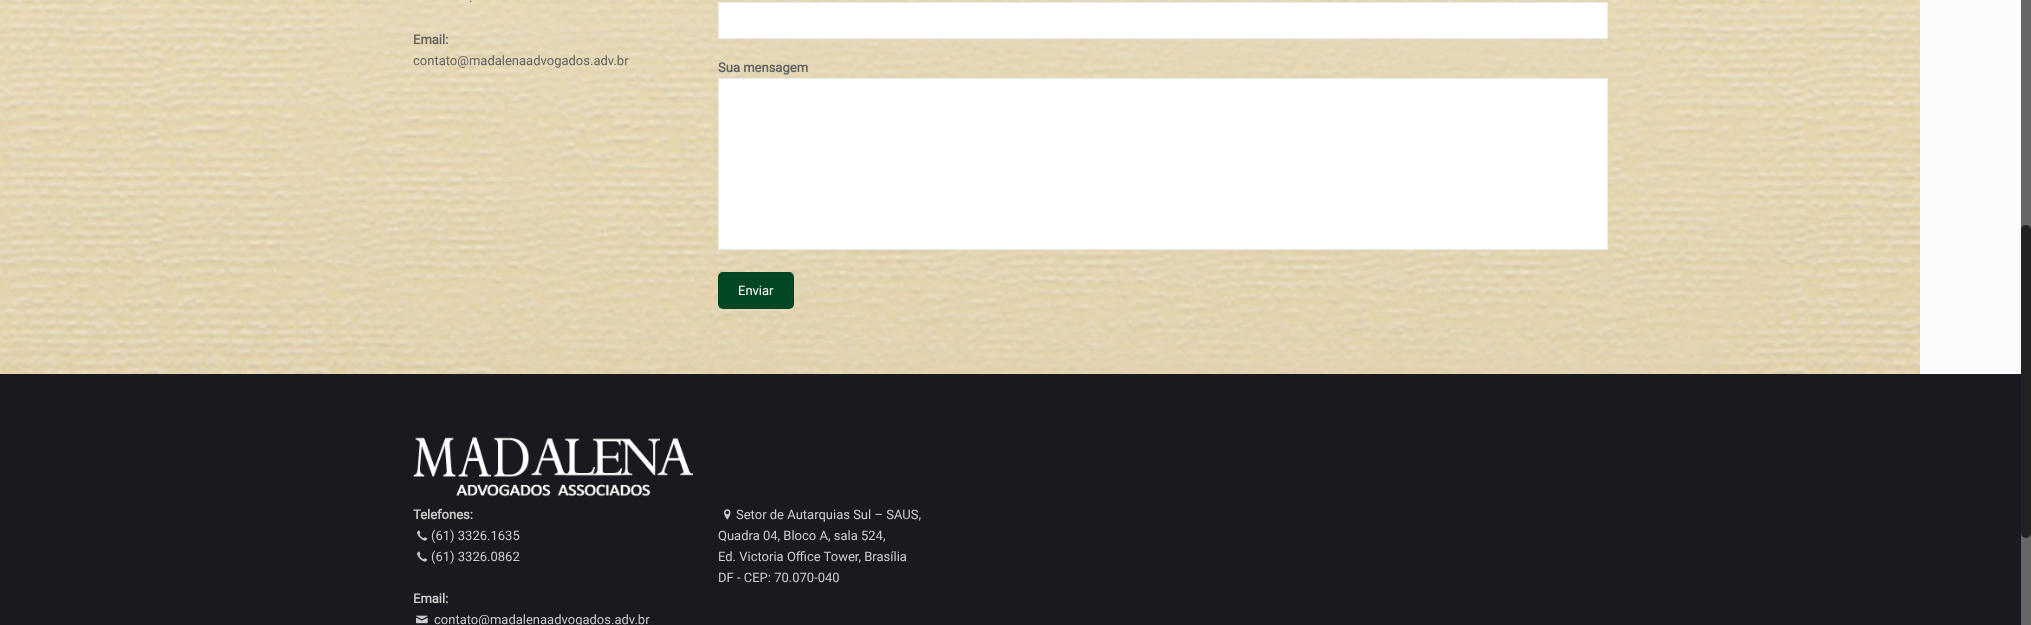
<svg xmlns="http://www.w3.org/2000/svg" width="2031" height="625">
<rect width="100%" height="100%" fill="#fcfcfc"/>
<image x="0" y="0" width="1920" height="374" href="media/1.png"/>
<text x="469" y="2" style="font-family:Roboto;font-size:13px;fill:#626262">.</text>
<text x="413" y="44" style="font-family:Roboto;font-size:13px;font-weight:bold;fill:#626262">Email:</text>
<text x="413" y="65" style="font-family:Roboto;font-size:13px;fill:#626262">contato@madalenaadvogados.adv.br</text>
<rect x="718.5" y="2.5" width="889" height="36" fill="#fff" stroke="#ebebeb"/>
<text x="718" y="72" style="font-family:Roboto;font-size:13px;font-weight:bold;fill:#626262">Sua mensagem</text>
<rect x="718.5" y="78.5" width="889" height="171" fill="#fff" stroke="#ebebeb"/>
<rect x="718" y="272" width="76" height="37" rx="5" fill="#034624"/>
<rect x="721" y="272" width="70" height="1" fill="#0000000d"/>
<text x="738" y="295" style="font-family:Roboto;font-size:13px;fill:#fff">Enviar</text>
<rect y="374" width="2021" height="251" fill="#1b181f"/>
<image x="413" y="436" width="280" height="61" href="media/2.png"/>
<text x="413" y="519" style="font-family:Roboto;font-size:13px;font-weight:bold;fill:#ccc">Telefones:</text>
<image x="417" y="530" width="11" height="11" href="media/3.png"/>
<text x="431" y="540" style="font-family:Roboto;font-size:13px;fill:#ccc">(61) 3326.1635</text>
<image x="417" y="551" width="11" height="11" href="media/3.png"/>
<text x="431" y="561" style="font-family:Roboto;font-size:13px;fill:#ccc">(61) 3326.0862</text>
<text x="413" y="603" style="font-family:Roboto;font-size:13px;font-weight:bold;fill:#ccc">Email:</text>
<image x="416" y="615" width="12" height="9" href="media/4.png"/>
<text x="434" y="624" style="font-family:Roboto;font-size:13px;fill:#ccc">contato@madalenaadvogados.adv.br</text>
<image x="724" y="509" width="7" height="11" href="media/5.png"/>
<text x="736" y="519" style="font-family:Roboto;font-size:13px;fill:#ccc">Setor de Autarquias Sul – SAUS,</text>
<text x="718" y="540" style="font-family:Roboto;font-size:13px;fill:#ccc">Quadra 04, Bloco A, sala 524,</text>
<text x="718" y="561" style="font-family:Roboto;font-size:13px;fill:#ccc">Ed. Victoria Office Tower, Brasília</text>
<text x="718" y="582" style="font-family:Roboto;font-size:13px;fill:#ccc">DF - CEP: 70.070-040</text>
<rect x="2021" width="10" height="625" fill="#666"/>
<rect x="2021" y="225" width="10" height="313" rx="5" fill="#222"/>
</svg>
